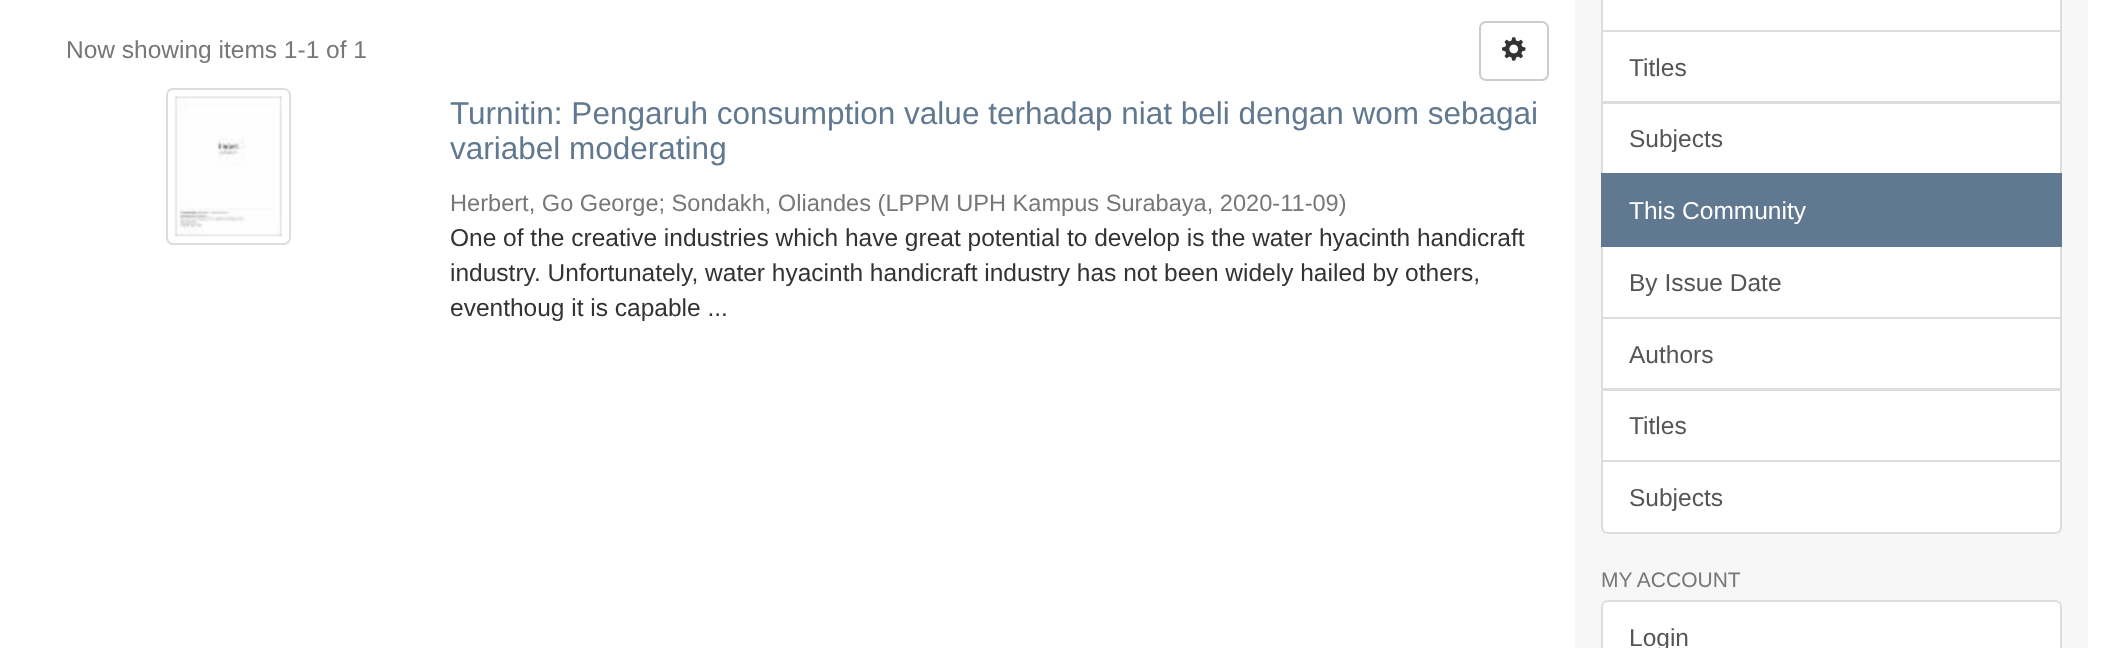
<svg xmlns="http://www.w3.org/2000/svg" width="2125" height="648">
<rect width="100%" height="100%" fill="#fff"/>
<rect x="1575" width="513" height="648" fill="#f7f7f7"/>
<text x="66" y="58" style="font-family:Liberation Sans;font-size:24.5px;fill:#777">Now showing items 1-1 of 1</text>
<rect x="1480" y="22" width="68" height="58" rx="6" fill="none" stroke="#ccc" stroke-width="2"/>
<image x="1502" y="37" width="24" height="24" href="media/1.png"/>
<rect x="167" y="89" width="123" height="155" rx="6" fill="none" stroke="#ddd" stroke-width="2"/>
<image x="174" y="96" width="108" height="141" href="media/2.png"/>
<text x="450" y="124" style="font-family:Liberation Sans;font-size:31.5px;fill:#607890">Turnitin: Pengaruh consumption value terhadap niat beli dengan wom sebagai</text>
<text x="450" y="159" style="font-family:Liberation Sans;font-size:31.5px;fill:#607890">variabel moderating</text>
<text x="450" y="211" style="font-family:Liberation Sans;font-size:23.6px;fill:#777">Herbert, Go George; Sondakh, Oliandes (LPPM UPH Kampus Surabaya, 2020-11-09)</text>
<text x="450" y="246" style="font-family:Liberation Sans;font-size:24.5px;fill:#333">One of the creative industries which have great potential to develop is the water hyacinth handicraft</text>
<text x="450" y="281" style="font-family:Liberation Sans;font-size:24.5px;fill:#333">industry. Unfortunately, water hyacinth handicraft industry has not been widely hailed by others,</text>
<text x="450" y="316" style="font-family:Liberation Sans;font-size:24.5px;fill:#333">eventhoug it is capable ...</text>
<rect x="1602" y="-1" width="459" height="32" fill="#fff" stroke="#ddd" stroke-width="2"/>
<rect x="1602" y="31" width="459" height="71" fill="#fff" stroke="#ddd" stroke-width="2"/>
<text x="1629" y="76" style="font-family:Liberation Sans;font-size:24.5px;fill:#555">Titles</text>
<rect x="1602" y="103" width="459" height="71" fill="#fff" stroke="#ddd" stroke-width="2"/>
<text x="1629" y="147" style="font-family:Liberation Sans;font-size:24.5px;fill:#555">Subjects</text>
<rect x="1602" y="246" width="459" height="72" fill="#fff" stroke="#ddd" stroke-width="2"/>
<rect x="1601" y="173" width="461" height="74" fill="#607890"/>
<text x="1629" y="219" style="font-family:Liberation Sans;font-size:24.5px;fill:#fff">This Community</text>
<text x="1629" y="291" style="font-family:Liberation Sans;font-size:24.5px;fill:#555">By Issue Date</text>
<rect x="1602" y="318" width="459" height="71" fill="#fff" stroke="#ddd" stroke-width="2"/>
<text x="1629" y="363" style="font-family:Liberation Sans;font-size:24.5px;fill:#555">Authors</text>
<rect x="1602" y="390" width="459" height="71" fill="#fff" stroke="#ddd" stroke-width="2"/>
<text x="1629" y="434" style="font-family:Liberation Sans;font-size:24.5px;fill:#555">Titles</text>
<path d="M1602 461h459v66c0 3.5-2.5 6-6 6h-447c-3.5 0-6-2.5-6-6z" fill="#fff" stroke="#ddd" stroke-width="2"/>
<text x="1629" y="506" style="font-family:Liberation Sans;font-size:24.5px;fill:#555">Subjects</text>
<text x="1601" y="587" style="font-family:Liberation Sans;font-size:21px;fill:#777">MY ACCOUNT</text>
<path d="M1608 601h447c3.5 0 6 2.5 6 6v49h-459v-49c0-3.5 2.5-6 6-6z" fill="#fff" stroke="#ddd" stroke-width="2"/>
<text x="1629" y="646" style="font-family:Liberation Sans;font-size:24.5px;fill:#555">Login</text>
</svg>
